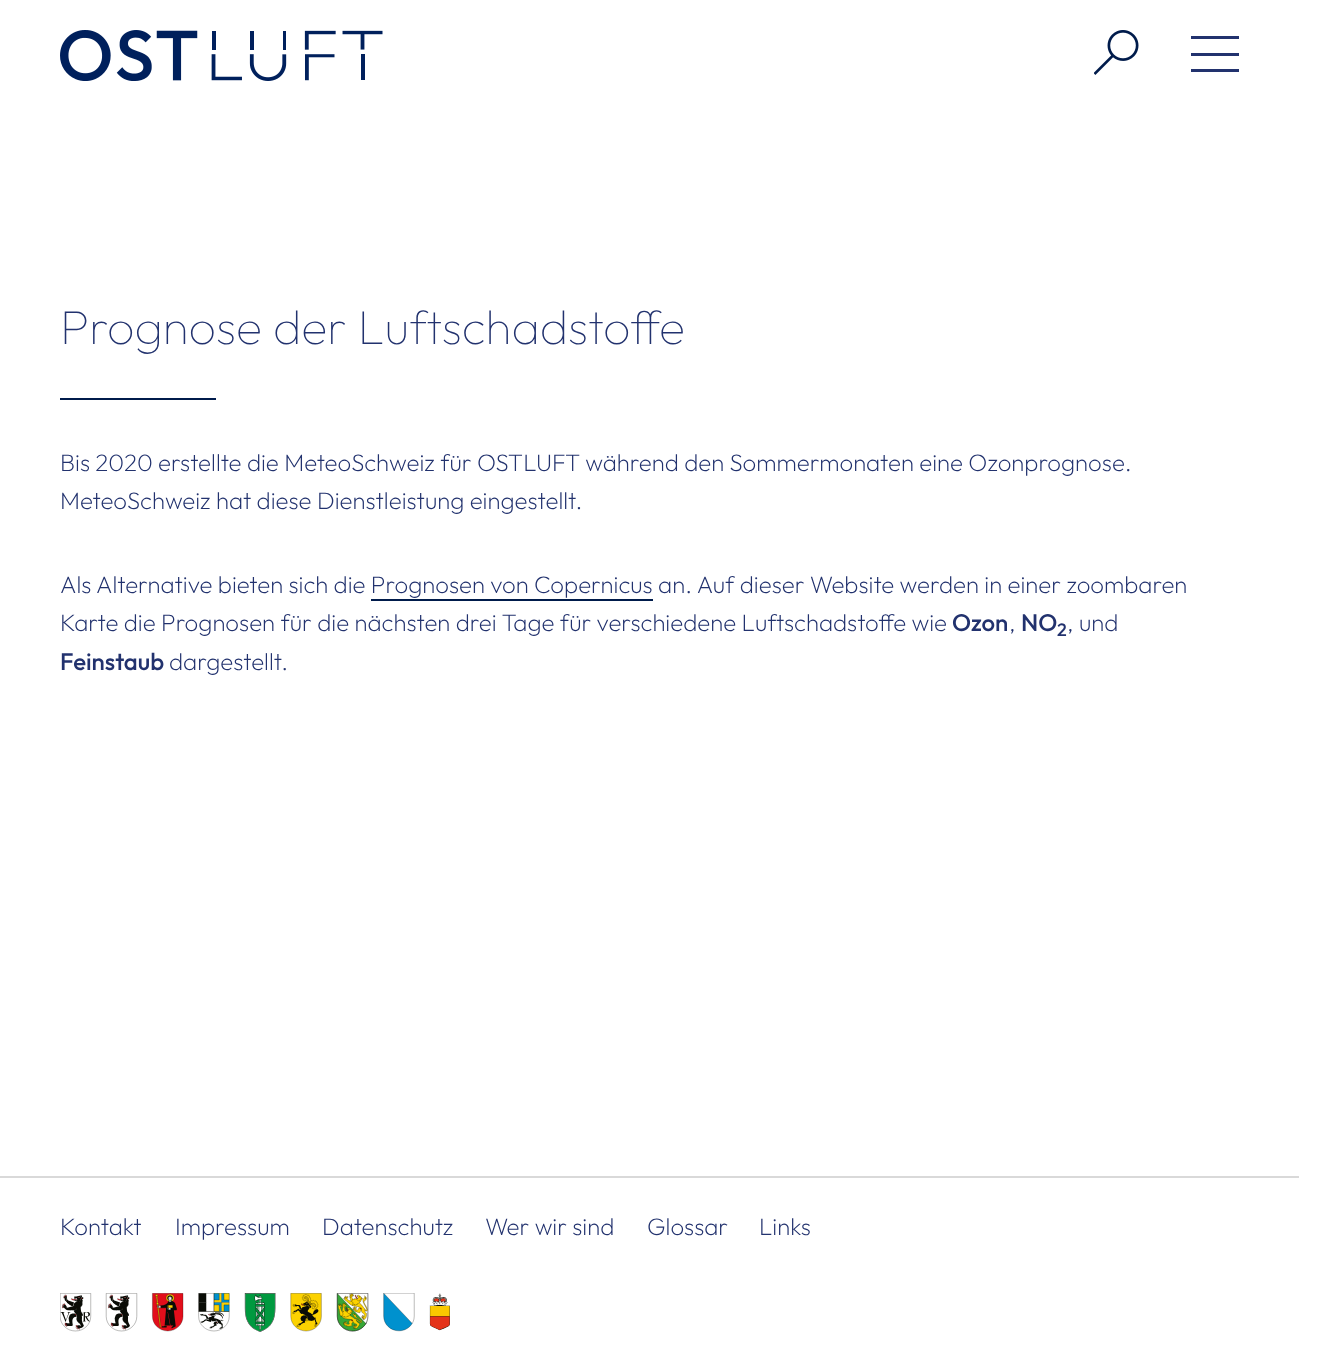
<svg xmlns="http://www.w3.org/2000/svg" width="1321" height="1362">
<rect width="100%" height="100%" fill="#fff"/>
<image x="60" y="30" width="323" height="51" href="media/1.png"/>
<image x="1094" y="30" width="45" height="45" href="media/2.png"/>
<rect x="1191" y="36" width="48" height="3" fill="#22326e"/>
<rect x="1191" y="53" width="48" height="3" fill="#22326e"/>
<rect x="1191" y="69" width="48" height="3" fill="#22326e"/>
<text x="60" y="344" style="font-family:'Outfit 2';font-size:48px;font-weight:100;fill:#22326e">Prognose der Luftschadstoffe</text>
<rect x="60" y="398" width="156" height="2" fill="#001b4b"/>
<text x="60" y="471" style="font-family:Outfit;font-size:24px;font-weight:100;fill:#22326e">Bis 2020 erstellte die MeteoSchweiz für OSTLUFT während den Sommermonaten eine Ozonprognose.</text>
<text x="60" y="509" style="font-family:Outfit;font-size:24px;font-weight:100;fill:#22326e">MeteoSchweiz hat diese Dienstleistung eingestellt.</text>
<text x="60" y="593" style="font-family:Outfit;font-size:24px;font-weight:100;fill:#22326e">Als Alternative bieten sich die Prognosen von Copernicus an. Auf dieser Website werden in einer zoombaren</text>
<rect x="371" y="599" width="282" height="2" fill="#001b4b"/>
<text x="60" y="631" style="font-family:Outfit;font-size:24px;font-weight:100;fill:#22326e">Karte die Prognosen für die nächsten drei Tage für verschiedene Luftschadstoffe wie</text>
<text x="952" y="631" style="font-family:'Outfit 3';font-size:24px;font-weight:100;fill:#22326e">Ozon</text>
<text x="1009" y="631" style="font-family:Outfit;font-size:24px;font-weight:100;fill:#22326e">,</text>
<text x="1021" y="631" style="font-family:'Outfit 3';font-size:24px;font-weight:100;fill:#22326e">NO</text>
<text x="1057" y="636" style="font-family:'Outfit 3';font-size:18px;font-weight:100;fill:#22326e">2</text>
<text x="1067" y="631" style="font-family:Outfit;font-size:24px;font-weight:100;fill:#22326e">, und</text>
<text x="60" y="670" style="font-family:'Outfit 3';font-size:24px;font-weight:100;fill:#22326e">Feinstaub</text>
<text x="169" y="670" style="font-family:Outfit;font-size:24px;font-weight:100;fill:#22326e">dargestellt.</text>
<rect y="1176" width="1299" height="2" fill="#d9d9d9"/>
<text x="60" y="1235" style="font-family:Outfit;font-size:24px;font-weight:100;fill:#22326e">Kontakt</text>
<text x="175" y="1235" style="font-family:Outfit;font-size:24px;font-weight:100;fill:#22326e">Impressum</text>
<text x="322" y="1235" style="font-family:Outfit;font-size:24px;font-weight:100;fill:#22326e">Datenschutz</text>
<text x="485" y="1235" style="font-family:Outfit;font-size:24px;font-weight:100;fill:#22326e">Wer wir sind</text>
<text x="647" y="1235" style="font-family:Outfit;font-size:24px;font-weight:100;fill:#22326e">Glossar</text>
<text x="759" y="1235" style="font-family:Outfit;font-size:24px;font-weight:100;fill:#22326e">Links</text>
<image x="60" y="1293" width="390" height="39" href="media/3.png"/>
</svg>
